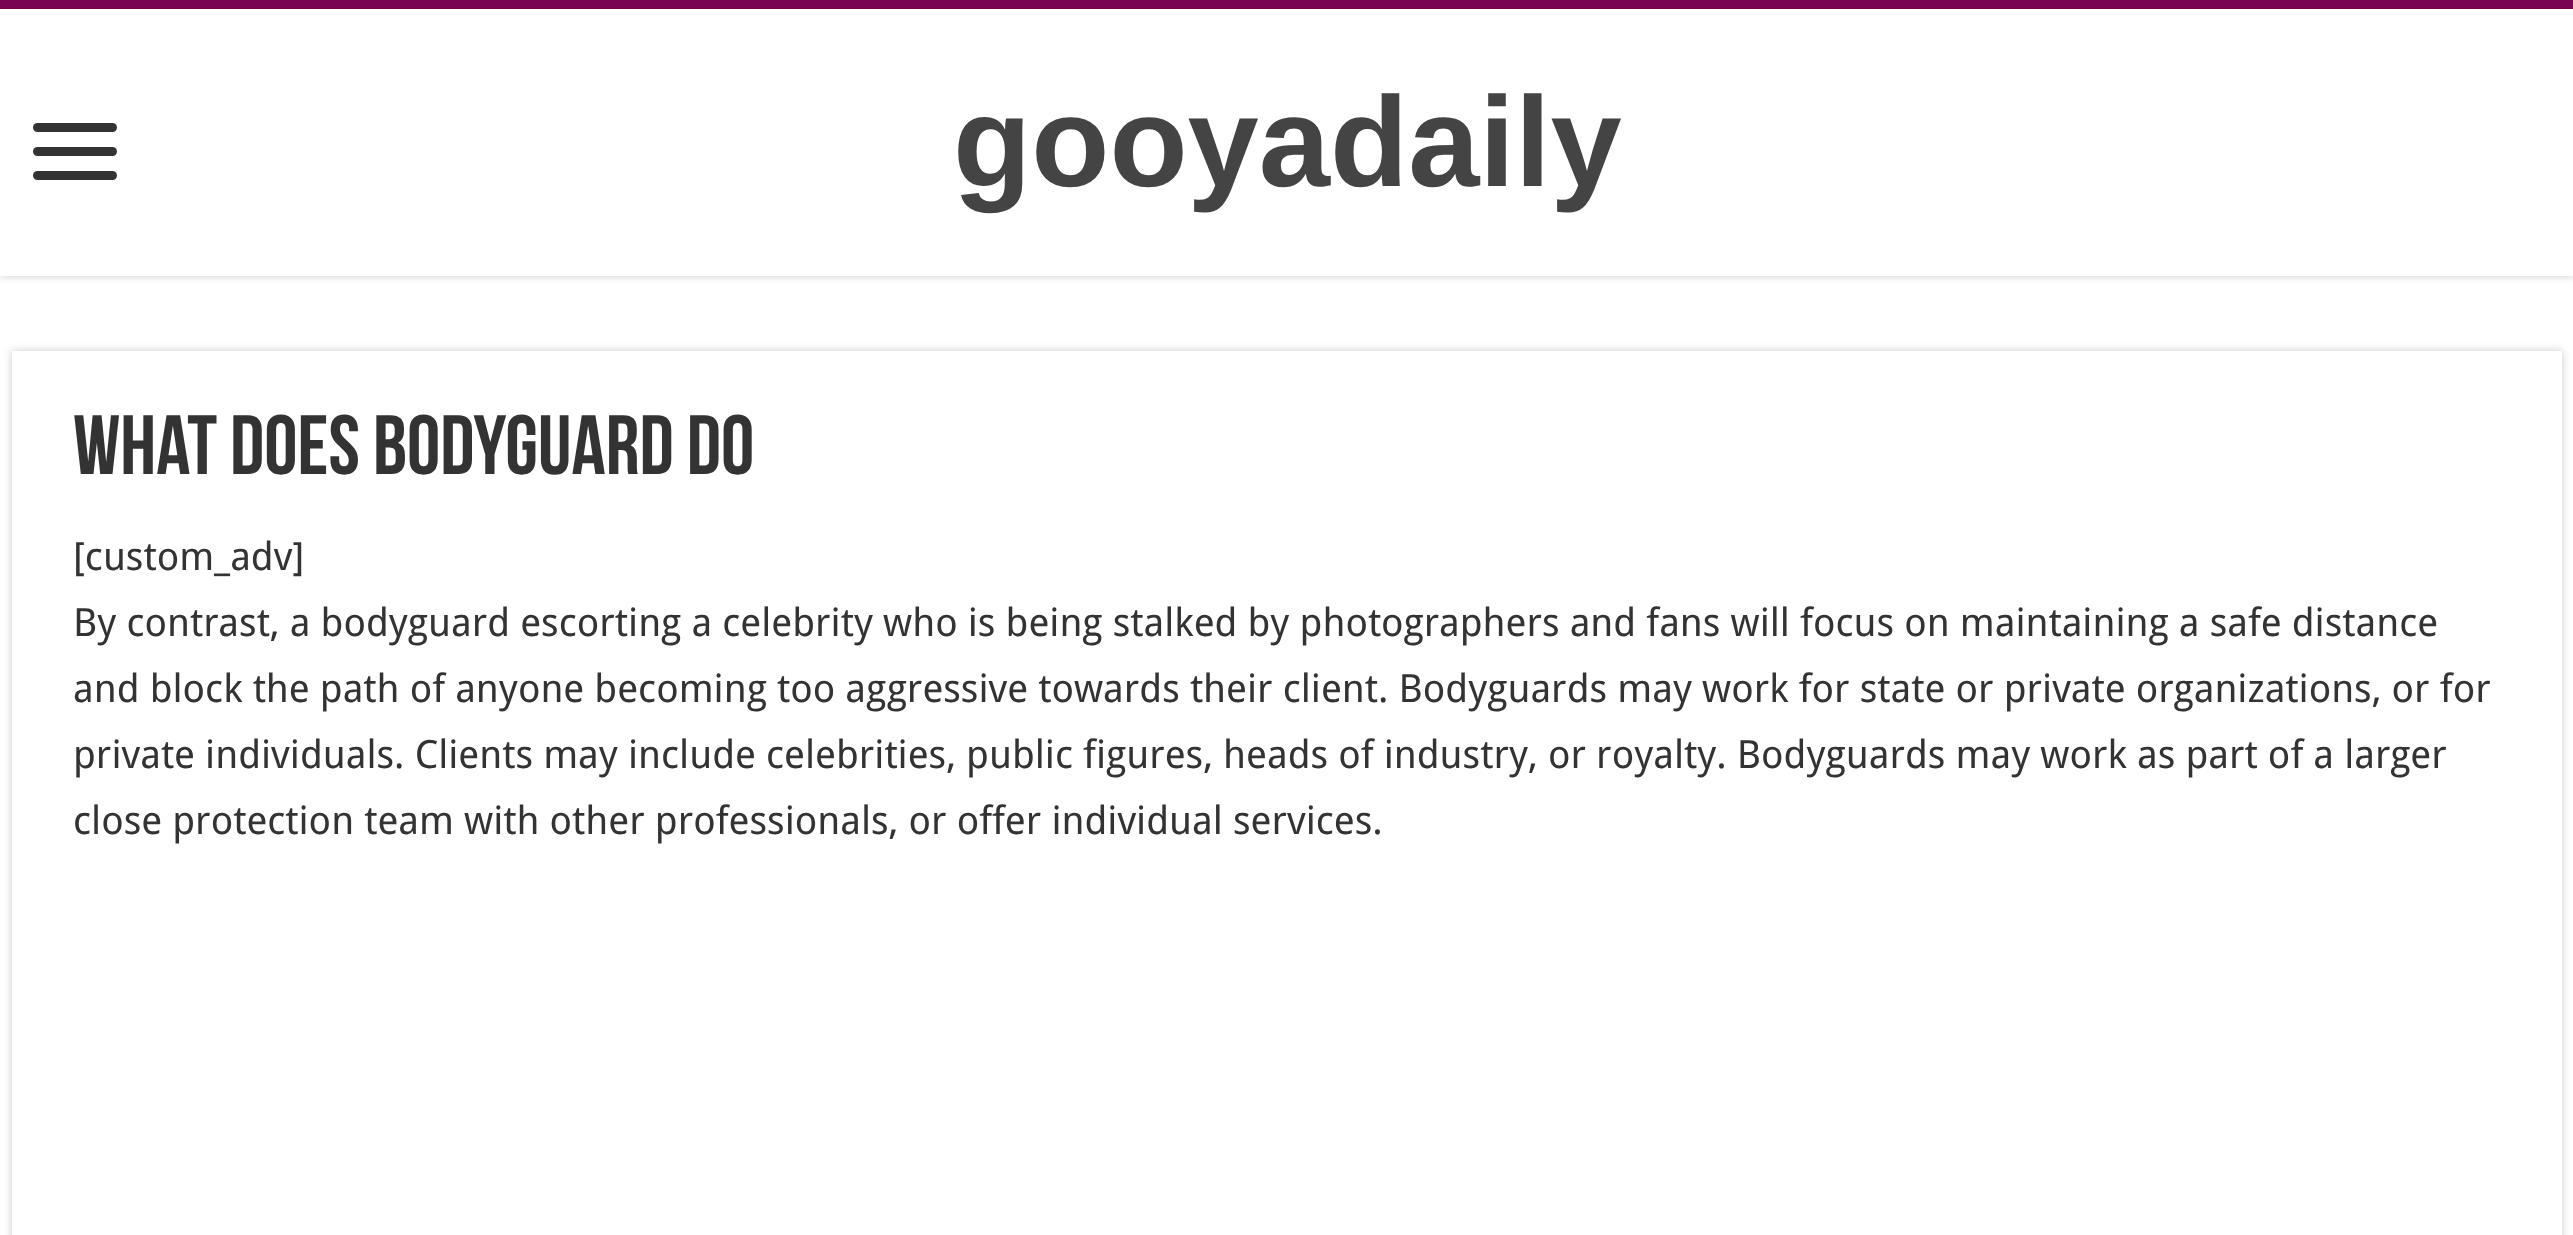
<svg xmlns="http://www.w3.org/2000/svg" width="2573" height="1235">
<defs>
<clipPath id="clip1"><rect x="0" y="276" width="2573" height="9"/></clipPath>
<clipPath id="clip2"><path d="M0 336h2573v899h-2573zm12 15h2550v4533h-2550z" clip-rule="evenodd"/></clipPath>
</defs>
<rect width="100%" height="100%" fill="#fff"/>
<g clip-path="url(#clip1)">
<rect width="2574" height="276" fill="#cacaca" filter="blur(4.5px)"/>
</g>
<rect width="2573" height="9" fill="#780453"/>
<rect x="33" y="123" width="84" height="9" rx="4.5" fill="#333"/>
<rect x="33" y="147" width="84" height="9" rx="4.5" fill="#333"/>
<rect x="33" y="171" width="84" height="9" rx="4.5" fill="#333"/>
<text x="953" y="186" style="font-family:Liberation Sans;font-size:128px;font-weight:bold;fill:#444">gooyadaily</text>
<g clip-path="url(#clip2)">
<rect x="12" y="351" width="2550" height="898" fill="#cacaca" filter="blur(4.5px)"/>
</g>
<text x="73" y="474" style="font-family:Bebas Neue;font-size:84px;font-weight:bold;fill:#333">What does bodyguard do</text>
<text x="73" y="570" style="font-family:Droid Sans;font-size:39px;fill:#333">[custom_adv]</text>
<text x="73" y="636" style="font-family:Droid Sans;font-size:39px;fill:#333">By contrast, a bodyguard escorting a celebrity who is being stalked by photographers and fans will focus on maintaining a safe distance</text>
<text x="73" y="702" style="font-family:Droid Sans;font-size:39px;fill:#333">and block the path of anyone becoming too aggressive towards their client. Bodyguards may work for state or private organizations, or for</text>
<text x="73" y="768" style="font-family:Droid Sans;font-size:39px;fill:#333">private individuals. Clients may include celebrities, public figures, heads of industry, or royalty. Bodyguards may work as part of a larger</text>
<text x="73" y="834" style="font-family:Droid Sans;font-size:39px;fill:#333">close protection team with other professionals, or offer individual services.</text>
</svg>
